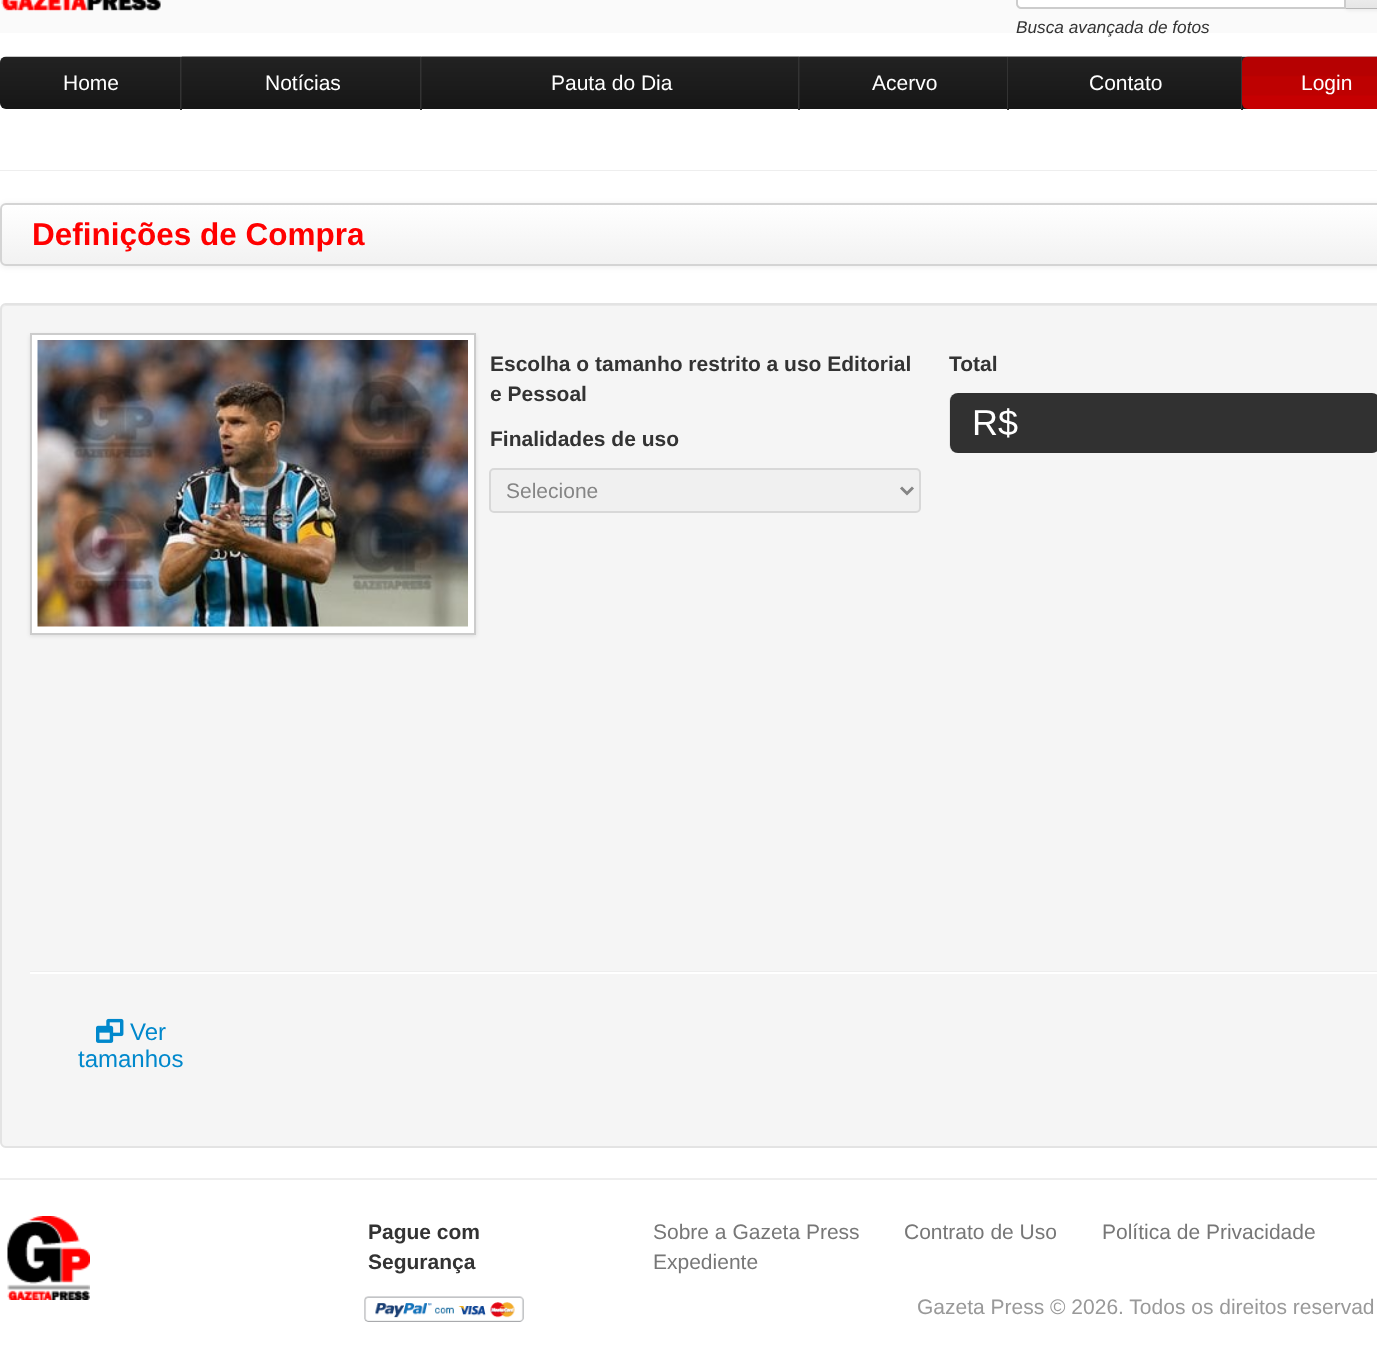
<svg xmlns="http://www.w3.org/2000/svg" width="1377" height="1348">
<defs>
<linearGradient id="g1" gradientUnits="userSpaceOnUse" x1="1377" y1="-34" x2="1377" y2="7.5"><stop offset="0" stop-color="#fff"/><stop offset="1" stop-color="#e6e6e6"/></linearGradient>
<clipPath id="clip1"><rect y="203" width="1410" height="63" rx="6"/></clipPath>
<linearGradient id="g2" gradientUnits="userSpaceOnUse" x1="705" y1="204" x2="705" y2="264"><stop offset="0" stop-color="#fff"/><stop offset="1" stop-color="#f2f2f2"/></linearGradient>
</defs>
<rect width="100%" height="100%" fill="#fff"/>
<rect width="1377" height="33" fill="#fafafa"/>
<image x="1" y="0" width="161" height="11" href="media/1.png"/>
<rect x="1344" y="-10" width="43" height="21" rx="5" fill="#0000000d" filter="blur(1.5px)"/>
<rect x="1344" width="33" height="8" fill="url(#g1)"/>
<rect x="1346" y="8" width="31" height="1" fill="#f5f5f5"/>
<path d="M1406 9l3-1l-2-2l-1 2h-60v-1l-2 2z" fill="#00000040"/>
<path d="M1021-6h324v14h-324c-2 0-4-2-4-4v-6c0-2 2-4 4-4z" fill="#fff" stroke="#ccc" stroke-width="2"/>
<text x="1016" y="33" style="font-family:Liberation Sans;font-size:17.25px;font-style:italic;fill:#333">Busca avançada de fotos</text>
<image x="0" y="56" width="182" height="53" href="media/2.png"/>
<rect x="180" y="57" width="2" height="53" fill="#333"/>
<text x="63" y="90" style="font-family:Liberation Sans;font-size:21px;fill:#fff">Home</text>
<image x="181" y="56" width="241" height="53" href="media/3.png"/>
<rect x="420" y="57" width="2" height="53" fill="#333"/>
<text x="265" y="90" style="font-family:Liberation Sans;font-size:21px;fill:#fff">Notícias</text>
<image x="421" y="56" width="379" height="53" href="media/4.png"/>
<rect x="798" y="57" width="2" height="53" fill="#333"/>
<text x="551" y="90" style="font-family:Liberation Sans;font-size:21px;fill:#fff">Pauta do Dia</text>
<image x="799" y="56" width="209" height="53" href="media/5.png"/>
<rect x="1007" y="57" width="2" height="53" fill="#333"/>
<text x="872" y="90" style="font-family:Liberation Sans;font-size:21px;fill:#fff">Acervo</text>
<image x="1008" y="56" width="234" height="53" href="media/6.png"/>
<rect x="1241" y="57" width="2" height="53" fill="#333"/>
<text x="1089" y="90" style="font-family:Liberation Sans;font-size:21px;fill:#fff">Contato</text>
<image x="1242" y="56" width="135" height="53" href="media/7.png"/>
<image x="1242" y="56" width="135" height="53" href="media/8.png"/>
<text x="1301" y="90" style="font-family:Liberation Sans;font-size:21px;fill:#fff">Login</text>
<rect y="170" width="1377" height="1" fill="#eee"/>
<rect y="204" width="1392" height="63" rx="6" fill="#00000012" filter="blur(3px)"/>
<g clip-path="url(#clip1)">
<rect y="204" width="1377" height="60" fill="url(#g2)"/>
</g>
<rect x="1" y="204" width="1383" height="61" rx="5" fill="none" stroke="#d4d4d4" stroke-width="2"/>
<text x="32" y="245" style="font-family:Liberation Sans;font-size:31.5px;font-weight:bold;fill:#f00">Definições de Compra</text>
<rect y="303" width="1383" height="845" rx="6" fill="#f5f5f5"/>
<path d="M6 306h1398c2 0 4 2 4 4v834c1-1 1-2 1-3v-831c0-3-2-5-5-5h-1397c-3 0-5 2-5 5c0-2 2-4 4-4z" fill="#e9e9e9"/>
<rect x="1" y="304" width="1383" height="843" rx="5" fill="none" stroke="#e3e3e3" stroke-width="2"/>
<rect x="30" y="335" width="446" height="301" fill="#0000001a" filter="blur(2px)"/>
<rect x="31" y="334" width="444" height="300" fill="#fff" stroke="#ccc" stroke-width="2"/>
<image x="37" y="340" width="431" height="287" href="media/9.png"/>
<text x="490" y="371" style="font-family:Liberation Sans;font-size:21px;font-weight:bold;fill:#333">Escolha o tamanho restrito a uso Editorial</text>
<text x="490" y="401" style="font-family:Liberation Sans;font-size:21px;font-weight:bold;fill:#333">e Pessoal</text>
<text x="490" y="446" style="font-family:Liberation Sans;font-size:21px;font-weight:bold;fill:#333">Finalidades de uso</text>
<rect x="490" y="469" width="430" height="43" rx="4" fill="#f0f0f0" stroke="#d8d8d8" stroke-width="2"/>
<path d="M901 487.5l6 6l6-6" fill="none" stroke="#858585" stroke-width="3"/>
<text x="506" y="498" style="font-family:Liberation Sans;font-size:21px;fill:#858585">Selecione</text>
<text x="949" y="371" style="font-family:Liberation Sans;font-size:21px;font-weight:bold;fill:#333">Total</text>
<rect x="950" y="393" width="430" height="60" rx="8" fill="#313131"/>
<path d="M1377.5 450.5c-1.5 1-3 1.5-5 1.5h-415.5c-2 0-3.5-.5-5-1.5" fill="none" stroke="#31313140" stroke-width="1.5"/>
<path d="M952 450.5c-1-1.5-2-3-2-5v-45c0-2 1-3.5 2-5c1.5-1 3-1.5 5-1.5h415.5c2 0 3.5 .5 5 1.5c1 1.5 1.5 3 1.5 5v45c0 2-.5 3.5-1.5 5" fill="none" stroke="#3131311a" stroke-width="1.5"/>
<text x="972" y="435" style="font-family:Liberation Sans;font-size:36px;fill:#fff">R$</text>
<rect x="30" y="971" width="1347" height="1" fill="#eee"/>
<rect x="30" y="972" width="1347" height="2" fill="#fff"/>
<image x="96" y="1018" width="28" height="25" href="media/10.png"/>
<text x="130" y="1040" style="font-family:Liberation Sans;font-size:24px;fill:#08c">Ver</text>
<text x="78" y="1067" style="font-family:Liberation Sans;font-size:24px;fill:#08c">tamanhos</text>
<rect y="1178" width="1377" height="2" fill="#eee"/>
<image x="7" y="1216" width="83" height="84" href="media/11.png"/>
<text x="368" y="1239" style="font-family:Liberation Sans;font-size:21px;font-weight:bold;fill:#333">Pague com</text>
<text x="368" y="1269" style="font-family:Liberation Sans;font-size:21px;font-weight:bold;fill:#333">Segurança</text>
<image x="364" y="1296" width="160" height="26" href="media/12.png"/>
<text x="653" y="1239" style="font-family:Liberation Sans;font-size:21px;fill:#777">Sobre a Gazeta Press</text>
<text x="904" y="1239" style="font-family:Liberation Sans;font-size:21px;fill:#777">Contrato de Uso</text>
<text x="1102" y="1239" style="font-family:Liberation Sans;font-size:21px;fill:#777">Política de Privacidade</text>
<text x="653" y="1269" style="font-family:Liberation Sans;font-size:21px;fill:#777">Expediente</text>
<text x="917" y="1314" style="font-family:Liberation Sans;font-size:21px;fill:#999">Gazeta Press © 2026. Todos os direitos reservad</text>
</svg>
